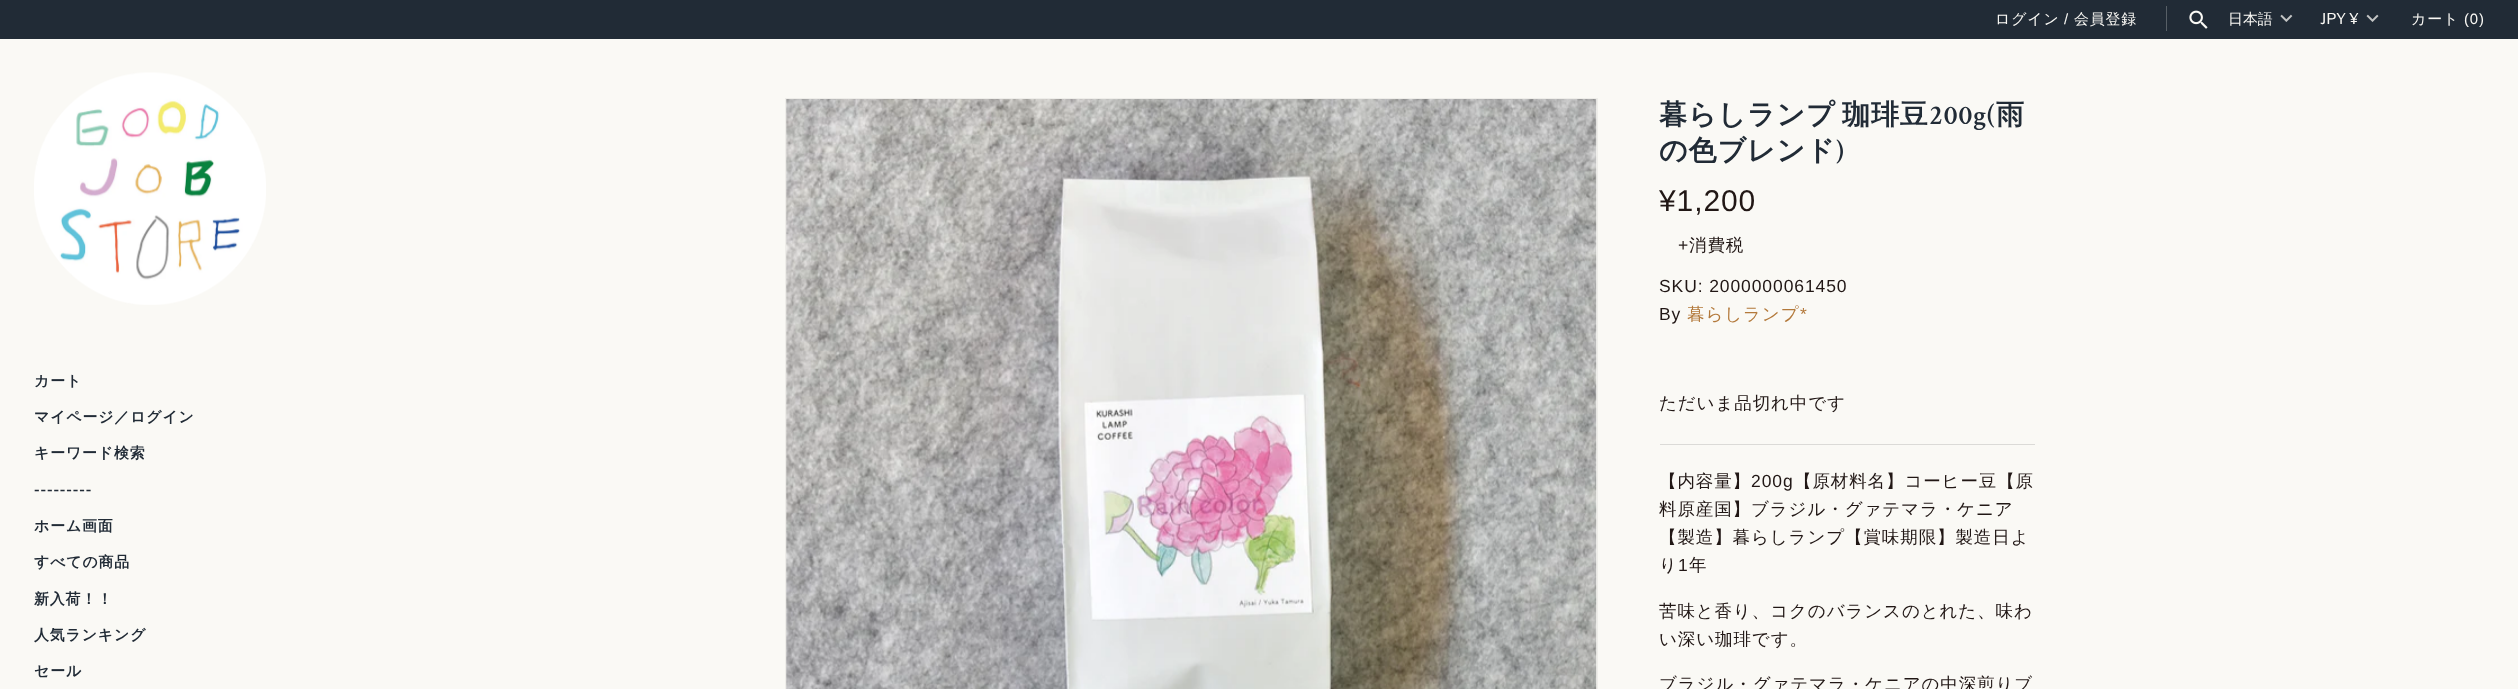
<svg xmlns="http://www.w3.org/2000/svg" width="2518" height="689">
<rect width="100%" height="100%" fill="#faf9f5"/>
<rect width="2518" height="39" fill="#212b36"/>
<text x="1995" y="24" style="font-family:WenQuanYi Zen Hei;font-size:14.9px;font-weight:500;letter-spacing:0.9px;fill:#faf9f5">ログイン</text>
<text x="2064" y="24" style="font-family:Liberation Sans;font-size:14.9px;letter-spacing:0.9px;fill:#faf9f5">/</text>
<text x="2074" y="24" style="font-family:WenQuanYi Zen Hei;font-size:14.9px;font-weight:500;letter-spacing:0.9px;fill:#faf9f5">会員登録</text>
<rect x="2166" y="6" width="1" height="25" fill="#575f66"/>
<image x="2189" y="10" width="19" height="19" href="media/1.png"/>
<text x="2228" y="24" style="font-family:WenQuanYi Zen Hei;font-size:14.9px;font-weight:500;fill:#faf9f5">日本語</text>
<image x="2280" y="14" width="13" height="8" href="media/2.png"/>
<text x="2320" y="24" style="font-family:Libre Franklin;font-size:14.9px;fill:#faf9f5">JPY ¥</text>
<image x="2366" y="14" width="13" height="8" href="media/3.png"/>
<text x="2411" y="24" style="font-family:WenQuanYi Zen Hei;font-size:14.9px;font-weight:500;letter-spacing:0.9px;fill:#faf9f5">カート</text>
<text x="2464" y="24" style="font-family:Liberation Sans;font-size:14.9px;letter-spacing:0.9px;fill:#faf9f5">(0)</text>
<image x="34" y="72" width="232" height="233" href="media/4.png"/>
<text x="34" y="386" style="font-family:WenQuanYi Zen Hei;font-size:14.9px;font-weight:bold;letter-spacing:0.9px;fill:#212b36">カート</text>
<text x="34" y="422" style="font-family:WenQuanYi Zen Hei;font-size:14.9px;font-weight:bold;letter-spacing:0.9px;fill:#212b36">マイページ／ログイン</text>
<text x="34" y="458" style="font-family:WenQuanYi Zen Hei;font-size:14.9px;font-weight:bold;letter-spacing:0.9px;fill:#212b36">キーワード検索</text>
<text x="34" y="495" style="font-family:Karla;font-size:14.9px;font-weight:bold;letter-spacing:0.9px;fill:#212b36">---------</text>
<text x="34" y="531" style="font-family:WenQuanYi Zen Hei;font-size:14.9px;font-weight:bold;letter-spacing:0.9px;fill:#212b36">ホーム画面</text>
<text x="34" y="567" style="font-family:WenQuanYi Zen Hei;font-size:14.9px;font-weight:bold;letter-spacing:0.9px;fill:#212b36">すべての商品</text>
<text x="34" y="604" style="font-family:WenQuanYi Zen Hei;font-size:14.9px;font-weight:bold;letter-spacing:0.9px;fill:#212b36">新入荷！！</text>
<text x="34" y="640" style="font-family:WenQuanYi Zen Hei;font-size:14.9px;font-weight:bold;letter-spacing:0.9px;fill:#212b36">人気ランキング</text>
<text x="34" y="676" style="font-family:WenQuanYi Zen Hei;font-size:14.9px;font-weight:bold;letter-spacing:0.9px;fill:#212b36">セール</text>
<rect x="785.5" y="98.5" width="812" height="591" fill="none" stroke="#eeede9"/>
<image x="786" y="99" width="811" height="590" href="media/5.png"/>
<text x="1659" y="124" word-spacing="-3" style="font-family:WenQuanYi Zen Hei;font-size:28px;font-weight:bold;letter-spacing:0.9px;fill:#212b36">暮らしランプ 珈琲豆</text>
<text x="1929" y="124" style="font-family:Crimson Text;font-size:28px;font-weight:600;letter-spacing:0.9px;fill:#212b36">200g(</text>
<text x="1996" y="124" style="font-family:WenQuanYi Zen Hei;font-size:28px;font-weight:bold;letter-spacing:0.9px;fill:#212b36">雨</text>
<text x="1659" y="160" style="font-family:WenQuanYi Zen Hei;font-size:28px;font-weight:bold;letter-spacing:0.9px;fill:#212b36">の色ブレンド</text>
<text x="1836" y="160" style="font-family:Crimson Text;font-size:28px;font-weight:600;letter-spacing:0.9px;fill:#212b36">)</text>
<text x="1659" y="211" style="font-family:Liberation Sans;font-size:30px;letter-spacing:0.9px;fill:#211715">¥1,200</text>
<text x="1678" y="251" style="font-family:Liberation Sans;font-size:17.5px;letter-spacing:0.9px;fill:#211715">+</text>
<text x="1689" y="251" style="font-family:WenQuanYi Zen Hei;font-size:17.5px;font-weight:500;letter-spacing:0.9px;fill:#211715">消費税</text>
<text x="1659" y="292" style="font-family:Liberation Sans;font-size:17.5px;letter-spacing:0.9px;fill:#211715">SKU: 2000000061450</text>
<text x="1659" y="320" style="font-family:Liberation Sans;font-size:17.5px;letter-spacing:0.9px;fill:#211715">By</text>
<text x="1687" y="320" style="font-family:WenQuanYi Zen Hei;font-size:17.5px;font-weight:500;letter-spacing:0.9px;fill:#b3793b">暮らしランプ</text>
<text x="1800" y="320" style="font-family:Liberation Sans;font-size:17.5px;letter-spacing:0.9px;fill:#b3793b">*</text>
<text x="1659" y="409" style="font-family:WenQuanYi Zen Hei;font-size:17.5px;font-weight:500;letter-spacing:0.9px;fill:#211715">ただいま品切れ中です</text>
<rect x="1660" y="444" width="375" height="1" fill="#dbdad7"/>
<text x="1659" y="487" style="font-family:WenQuanYi Zen Hei;font-size:17.5px;font-weight:500;letter-spacing:0.9px;fill:#211715">【内容量】</text>
<text x="1751" y="487" style="font-family:Liberation Sans;font-size:17.5px;letter-spacing:0.9px;fill:#211715">200g</text>
<text x="1794" y="487" style="font-family:WenQuanYi Zen Hei;font-size:17.5px;font-weight:500;letter-spacing:0.9px;fill:#211715">【原材料名】コーヒー豆【原</text>
<text x="1659" y="515" style="font-family:WenQuanYi Zen Hei;font-size:17.5px;font-weight:500;letter-spacing:0.9px;fill:#211715">料原産国】ブラジル・グァテマラ・ケニア</text>
<text x="1659" y="543" style="font-family:WenQuanYi Zen Hei;font-size:17.5px;font-weight:500;letter-spacing:0.9px;fill:#211715">【製造】暮らしランプ【賞味期限】製造日よ</text>
<text x="1659" y="571" style="font-family:WenQuanYi Zen Hei;font-size:17.5px;font-weight:500;letter-spacing:0.9px;fill:#211715">り</text>
<text x="1678" y="571" style="font-family:Liberation Sans;font-size:17.5px;letter-spacing:0.9px;fill:#211715">1</text>
<text x="1689" y="571" style="font-family:WenQuanYi Zen Hei;font-size:17.5px;font-weight:500;letter-spacing:0.9px;fill:#211715">年</text>
<text x="1659" y="617" style="font-family:WenQuanYi Zen Hei;font-size:17.5px;font-weight:500;letter-spacing:0.9px;fill:#211715">苦味と香り、コクのバランスのとれた、味わ</text>
<text x="1659" y="645" style="font-family:WenQuanYi Zen Hei;font-size:17.5px;font-weight:500;letter-spacing:0.9px;fill:#211715">い深い珈琲です。</text>
<text x="1659" y="690" style="font-family:WenQuanYi Zen Hei;font-size:17.5px;font-weight:500;letter-spacing:0.9px;fill:#211715">ブラジル・グァテマラ・ケニアの中深煎りブ</text>
</svg>
